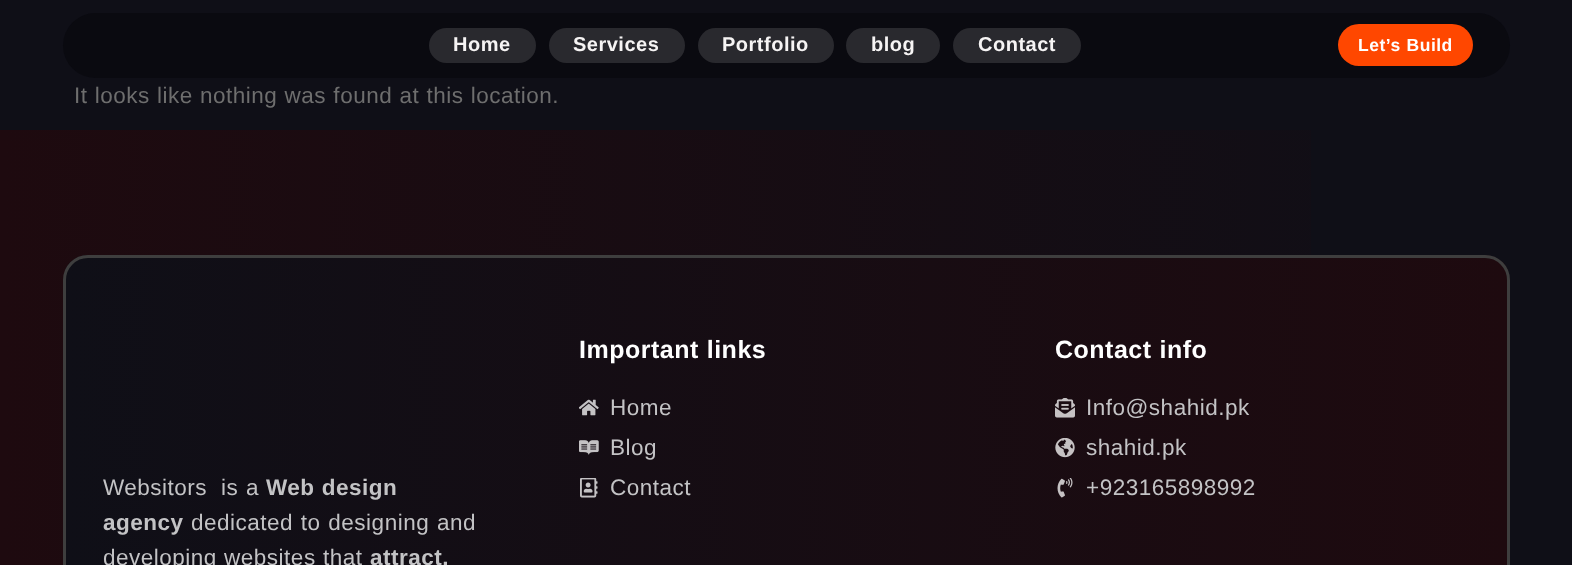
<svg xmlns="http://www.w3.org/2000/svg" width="1572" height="565">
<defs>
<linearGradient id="g1" gradientUnits="userSpaceOnUse" x1="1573" y1="481" x2="0" y2="481"><stop offset="0" stop-color="#0f0f17"/><stop offset="1" stop-color="#1e0a0f"/></linearGradient>
<clipPath id="clip1"><rect x="63" y="255" width="1447" height="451" rx="25"/></clipPath>
<linearGradient id="g2" gradientUnits="userSpaceOnUse" x1="65" y1="481" x2="1508" y2="481"><stop offset="0" stop-color="#0f0f17"/><stop offset="1" stop-color="#1e0a0f"/></linearGradient>
</defs>
<rect width="100%" height="100%" fill="#0f0f17"/>
<rect x="63" y="13" width="1447" height="65" rx="32.5" fill="#0a0a10"/>
<rect x="429" y="28" width="107" height="35" rx="17.5" fill="#29292e"/>
<text x="453" y="51" style="font-family:Liberation Sans;font-size:20px;font-weight:bold;letter-spacing:0.5px;fill:#f6f4f4">Home</text>
<rect x="549" y="28" width="136" height="35" rx="17.5" fill="#29292e"/>
<text x="573" y="51" style="font-family:Liberation Sans;font-size:20px;font-weight:bold;letter-spacing:0.5px;fill:#f6f4f4">Services</text>
<rect x="698" y="28" width="136" height="35" rx="17.5" fill="#29292e"/>
<text x="722" y="51" style="font-family:Liberation Sans;font-size:20px;font-weight:bold;letter-spacing:0.5px;fill:#f6f4f4">Portfolio</text>
<rect x="846" y="28" width="94" height="35" rx="17.5" fill="#29292e"/>
<text x="871" y="51" style="font-family:Liberation Sans;font-size:20px;font-weight:bold;letter-spacing:0.5px;fill:#f6f4f4">blog</text>
<rect x="953" y="28" width="128" height="35" rx="17.5" fill="#29292e"/>
<text x="978" y="51" style="font-family:Liberation Sans;font-size:20px;font-weight:bold;letter-spacing:0.5px;fill:#f6f4f4">Contact</text>
<rect x="1338" y="24" width="135" height="42" rx="21" fill="#ff4700"/>
<text x="1358" y="51" word-spacing="0.5" style="font-family:Liberation Sans;font-size:17.5px;font-weight:bold;letter-spacing:0.5px;fill:#fff">Let’s Build</text>
<text x="74" y="103" word-spacing="0.5" style="font-family:Liberation Sans;font-size:22.5px;letter-spacing:0.5px;fill:#6e6e6e">It looks like nothing was found at this location.</text>
<rect y="130" width="1311" height="435" fill="url(#g1)"/>
<g clip-path="url(#clip1)">
<rect x="65" y="255" width="1443" height="310" fill="url(#g2)"/>
</g>
<rect x="64.5" y="256.5" width="1444" height="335" rx="23.5" fill="none" stroke="#3e3e3e" stroke-width="3"/>
<text x="579" y="358" word-spacing="0.5" style="font-family:Liberation Sans;font-size:25px;font-weight:bold;letter-spacing:0.5px;fill:#fff">Important links</text>
<image x="579" y="399" width="20" height="17" href="media/1.png"/>
<text x="610" y="415" style="font-family:Liberation Sans;font-size:22.5px;letter-spacing:0.5px;fill:#c3c3c5">Home</text>
<image x="579" y="440" width="20" height="15" href="media/2.png"/>
<text x="610" y="455" style="font-family:Liberation Sans;font-size:22.5px;letter-spacing:0.5px;fill:#c3c3c5">Blog</text>
<image x="580" y="478" width="18" height="20" href="media/3.png"/>
<text x="610" y="495" style="font-family:Liberation Sans;font-size:22.5px;letter-spacing:0.5px;fill:#c3c3c5">Contact</text>
<text x="1055" y="358" word-spacing="0.5" style="font-family:Liberation Sans;font-size:25px;font-weight:bold;letter-spacing:0.5px;fill:#fff">Contact info</text>
<image x="1055" y="398" width="20" height="20" href="media/4.png"/>
<text x="1086" y="415" style="font-family:Liberation Sans;font-size:22.5px;letter-spacing:0.5px;fill:#c3c3c5">Info@shahid.pk</text>
<image x="1055" y="438" width="20" height="20" href="media/5.png"/>
<text x="1086" y="455" style="font-family:Liberation Sans;font-size:22.5px;letter-spacing:0.5px;fill:#c3c3c5">shahid.pk</text>
<image x="1057" y="478" width="16" height="20" href="media/6.png"/>
<text x="1086" y="495" style="font-family:Liberation Sans;font-size:22.5px;letter-spacing:0.5px;fill:#c3c3c5">+923165898992</text>
<text x="103" y="495" style="font-family:Liberation Sans;font-size:22.5px;letter-spacing:0.5px;fill:#c3c3c5">Websitors</text>
<text x="221" y="495" word-spacing="1" style="font-family:Liberation Sans;font-size:22.5px;letter-spacing:0.5px;fill:#c3c3c5">is a</text>
<text x="266" y="495" word-spacing="0.5" style="font-family:Liberation Sans;font-size:22.5px;font-weight:bold;letter-spacing:0.5px;fill:#c3c3c5">Web design</text>
<text x="103" y="530" style="font-family:Liberation Sans;font-size:22.5px;font-weight:bold;letter-spacing:0.5px;fill:#c3c3c5">agency</text>
<text x="191" y="530" word-spacing="1" style="font-family:Liberation Sans;font-size:22.5px;letter-spacing:0.5px;fill:#c3c3c5">dedicated to designing and</text>
<text x="103" y="565" word-spacing="0.5" style="font-family:Liberation Sans;font-size:22.5px;letter-spacing:0.5px;fill:#c3c3c5">developing websites that</text>
<text x="370" y="565" style="font-family:Liberation Sans;font-size:22.5px;font-weight:bold;letter-spacing:0.5px;fill:#c3c3c5">attract,</text>
</svg>
